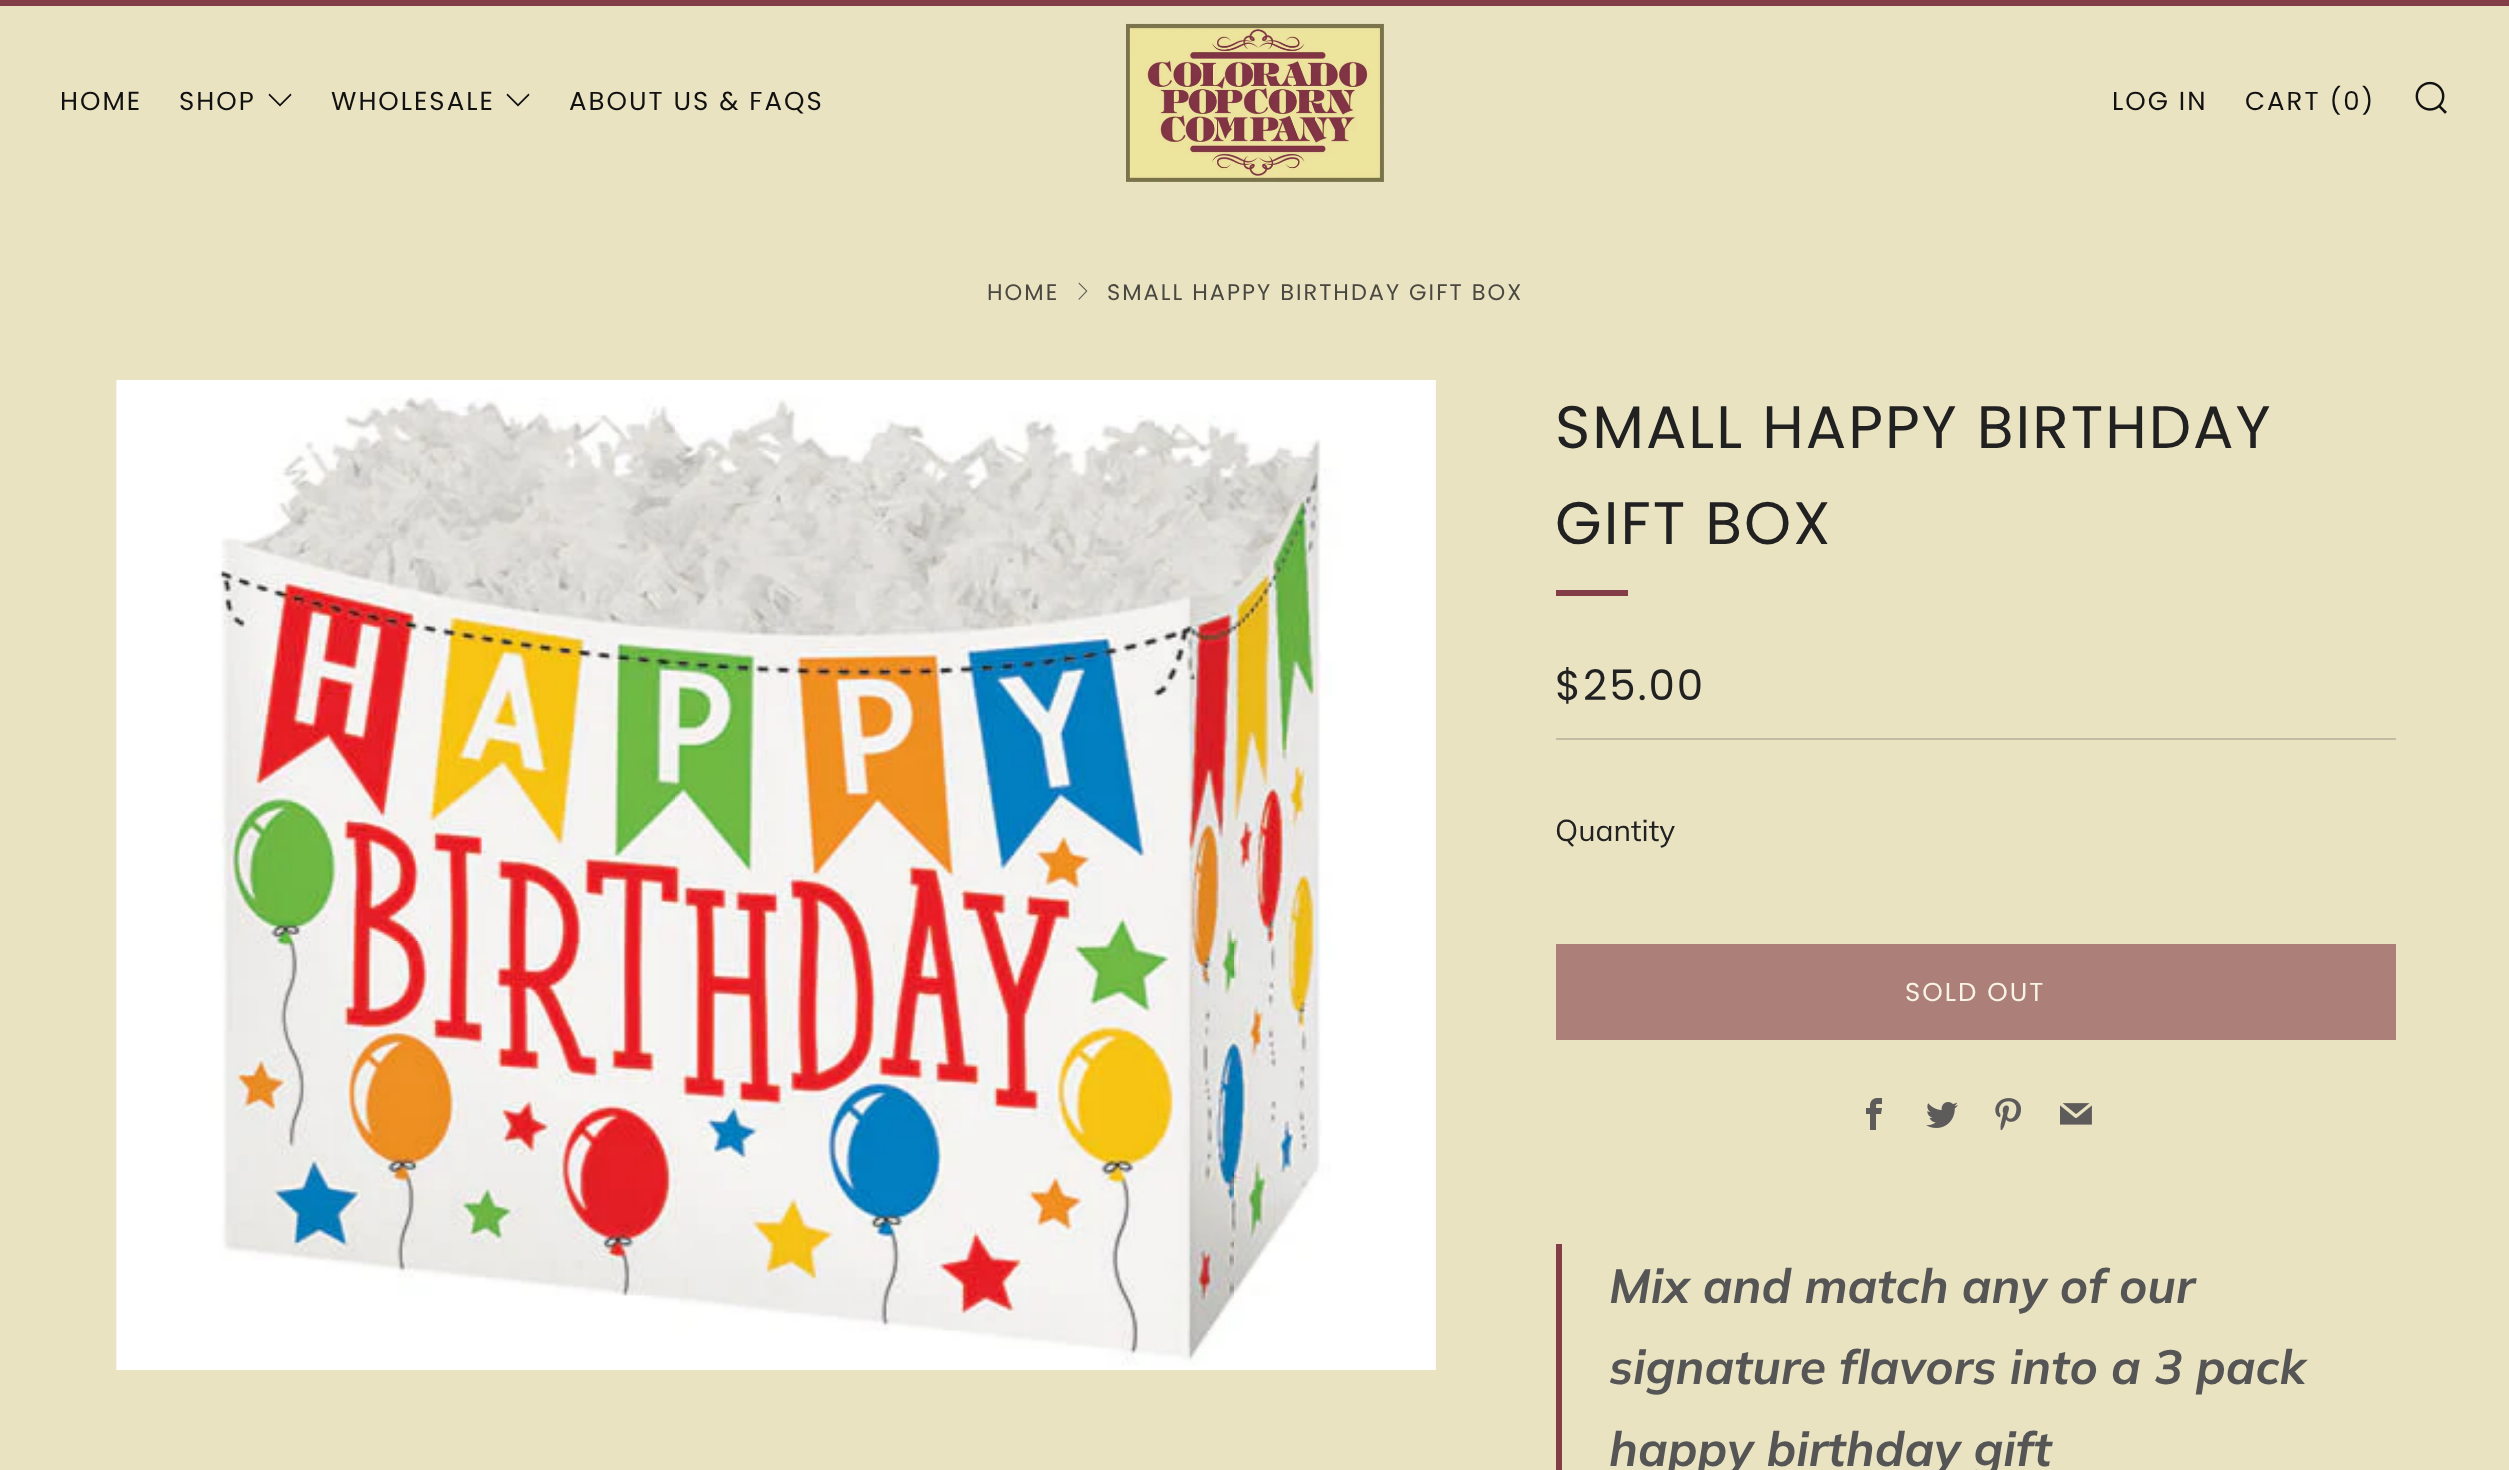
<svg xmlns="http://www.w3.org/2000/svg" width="2509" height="1470">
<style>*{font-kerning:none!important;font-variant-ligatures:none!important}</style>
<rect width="100%" height="100%" fill="#eae3c2"/>
<rect width="2509" height="6" fill="#833d47"/>
<image x="1126" y="23" width="258" height="159" href="media/1.png"/>
<text x="60" y="110" style="font-family:Poppins;font-size:26px;letter-spacing:2px;fill:#111">HOME</text>
<text x="179" y="110" style="font-family:Poppins;font-size:26px;letter-spacing:2px;fill:#111">SHOP</text>
<path d="M269.5 93.5l-1 1.5l11.5 11.5l11.5-11.5l-1-1.5l-10.5 10.5z" fill="#111"/>
<text x="331" y="110" style="font-family:Poppins;font-size:26px;letter-spacing:2px;fill:#111">WHOLESALE</text>
<path d="M507.5 93.5l-1 1.5l11.5 11.5l11.5-11.5l-1-1.5l-10.5 10.5z" fill="#111"/>
<text x="569" y="110" style="font-family:Poppins;font-size:26px;letter-spacing:2px;fill:#111">ABOUT US &amp; FAQS</text>
<text x="2112" y="110" style="font-family:Poppins;font-size:26px;letter-spacing:2px;fill:#111">LOG IN</text>
<text x="2245" y="110" style="font-family:Poppins;font-size:26px;letter-spacing:2px;fill:#111">CART (0)</text>
<image x="2415" y="81" width="32" height="33" href="media/2.png"/>
<text x="987" y="300" style="font-family:Poppins;font-size:22.5px;letter-spacing:2px;fill:#494841">HOME</text>
<path d="M1078.5 299l.5 1l8.5-9l-8.5-8.5l-.5 1l7.5 7.5z" fill="#5d5b51"/>
<text x="1107" y="300" style="font-family:Poppins;font-size:22.5px;letter-spacing:2px;fill:#494841">SMALL HAPPY BIRTHDAY GIFT BOX</text>
<rect x="116" y="380" width="1320" height="990" fill="#e6dace"/>
<image x="116" y="380" width="1320" height="990" href="media/3.png"/>
<text x="1555" y="448" style="font-family:Poppins;font-size:60px;letter-spacing:2px;fill:#212121">SMALL HAPPY BIRTHDAY</text>
<text x="1555" y="544" style="font-family:Poppins;font-size:60px;letter-spacing:2px;fill:#212121">GIFT BOX</text>
<rect x="1556" y="590" width="72" height="6" fill="#833d47"/>
<rect x="1556" y="738" width="840" height="2" fill="#c2bca2"/>
<text x="1555" y="700" style="font-family:Poppins;font-size:42px;letter-spacing:2px;fill:#212121">$25.00</text>
<text x="1555" y="841" style="font-family:Muli;font-size:30px;fill:#212121">Quantity</text>
<rect x="1556" y="944" width="840" height="96" fill="#ac7f78"/>
<text x="1905" y="1001" style="font-family:Poppins;font-size:26px;letter-spacing:2px;fill:#f7f4e7">SOLD OUT</text>
<image x="1866" y="1098" width="16" height="32" href="media/4.png"/>
<image x="1926" y="1102" width="32" height="26" href="media/5.png"/>
<image x="1995" y="1098" width="26" height="32" href="media/6.png"/>
<image x="2060" y="1103" width="32" height="22" href="media/7.png"/>
<rect x="1556" y="1244" width="6" height="226" fill="#833d47"/>
<text x="1609" y="1303" style="font-family:Muli;font-size:48px;font-weight:bold;font-style:italic;fill:#555">Mix and match any of our</text>
<text x="1609" y="1384" style="font-family:Muli;font-size:48px;font-weight:bold;font-style:italic;fill:#555">signature flavors into a 3 pack</text>
<text x="1609" y="1466" style="font-family:Muli;font-size:48px;font-weight:bold;font-style:italic;fill:#555">happy birthday gift</text>
</svg>
